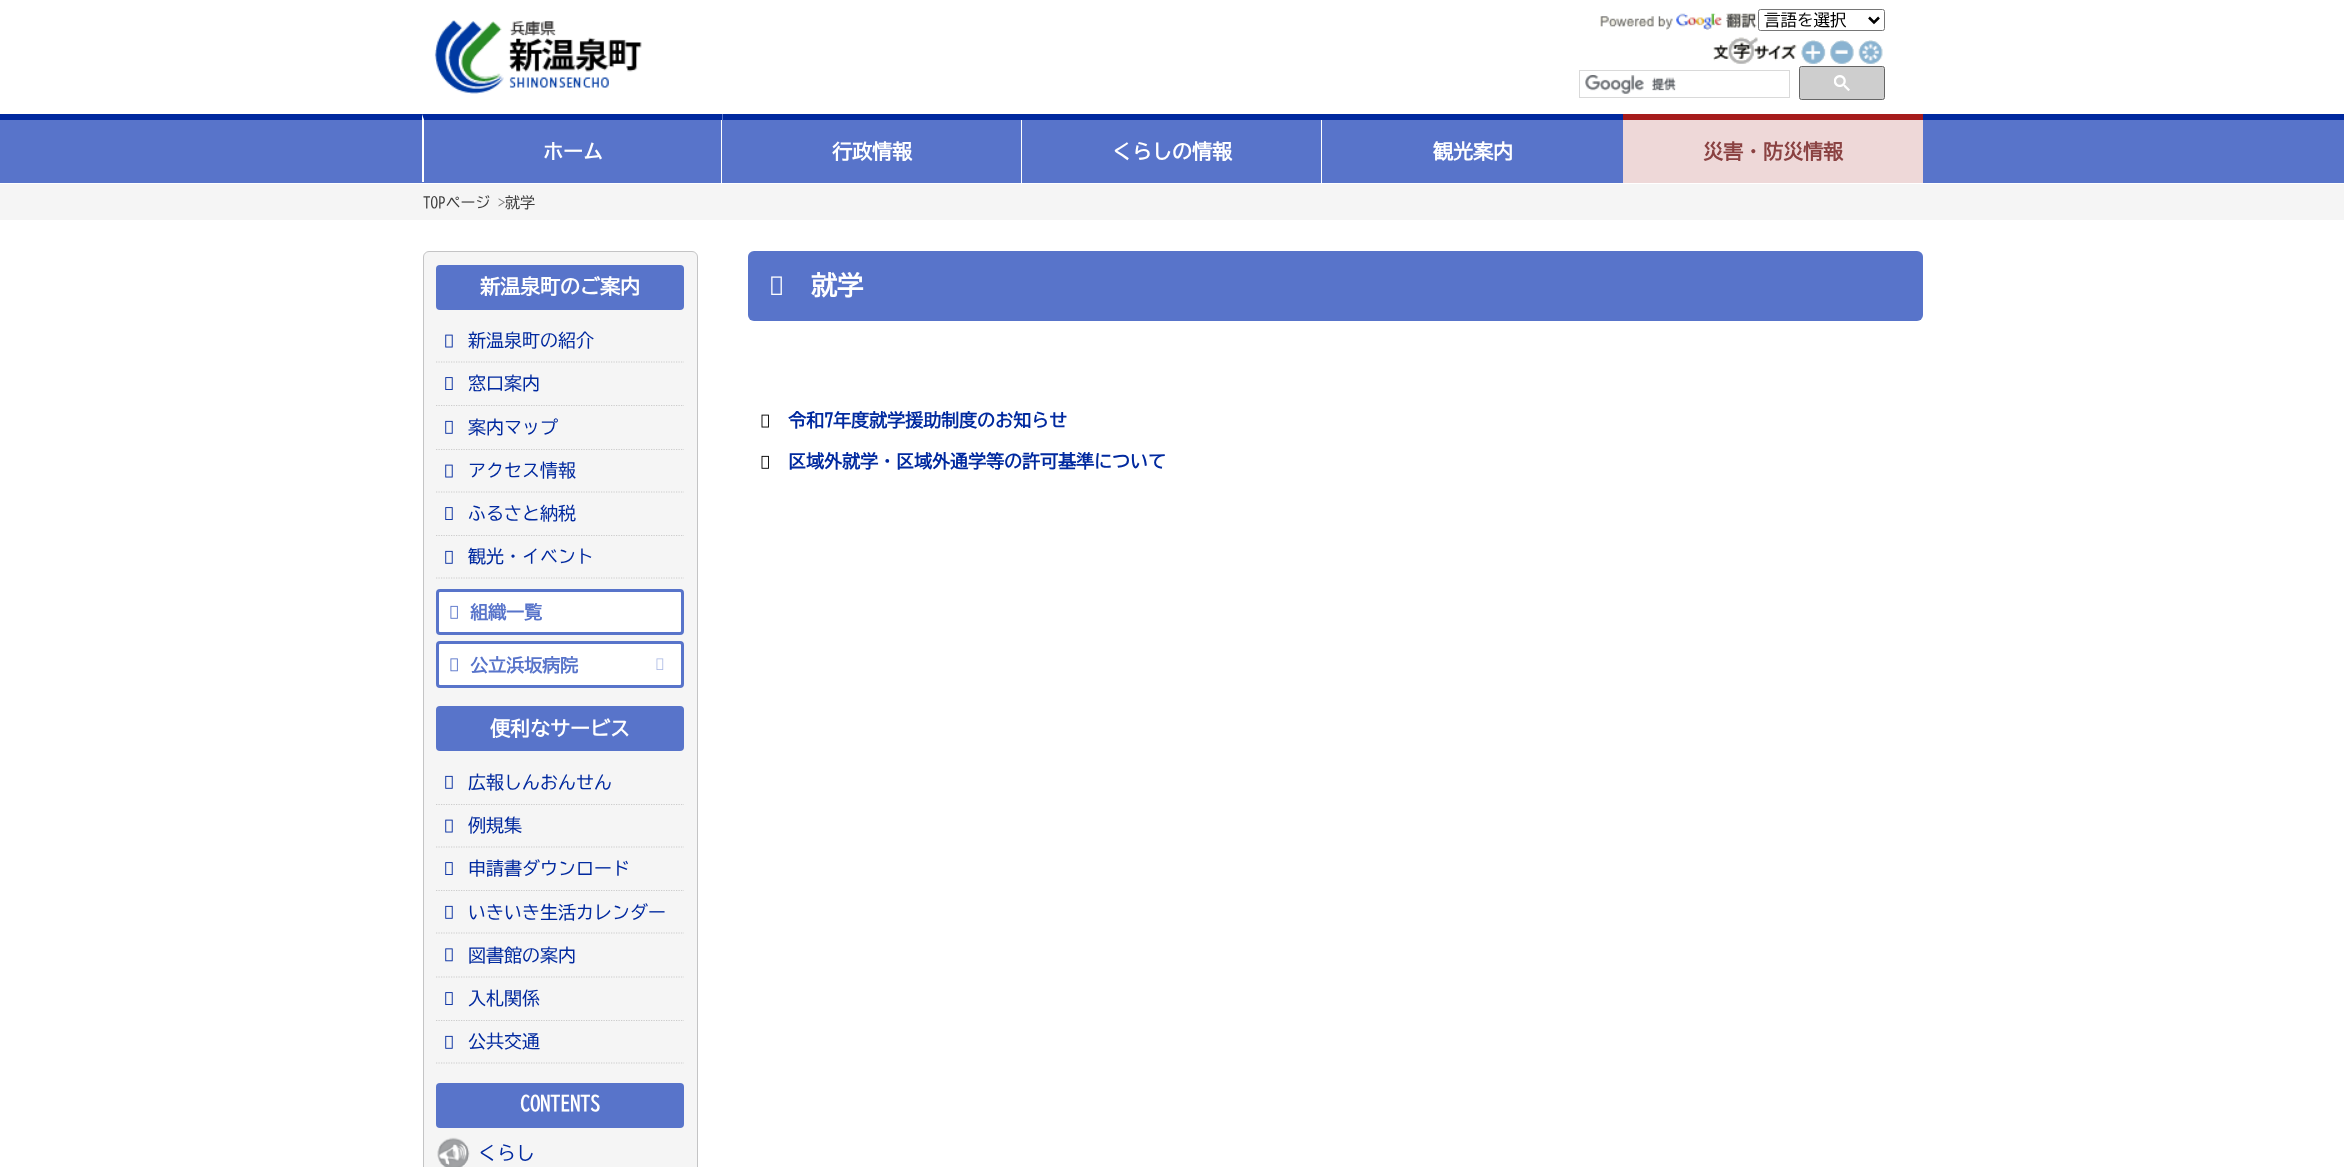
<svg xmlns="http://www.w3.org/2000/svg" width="2344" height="1167">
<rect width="100%" height="100%" fill="#fff"/>
<image x="434" y="20" width="208" height="74" href="media/1.png"/>
<image x="1600" y="13" width="157" height="17" href="media/2.png"/>
<rect x="1758.5" y="9.5" width="126" height="21" rx="2" fill="none" stroke="#767676"/>
<path d="M1869 17.5l5 5l5-5" fill="none" stroke="#000" stroke-width="2.5"/>
<text x="1764" y="26" style="font-family:BIZ UDGothic;font-size:16.5px;fill:#000">言語を選択</text>
<image x="1713" y="37" width="84" height="27" href="media/3.png"/>
<image x="1801" y="40" width="25" height="24" href="media/4.png"/>
<image x="1830" y="40" width="24" height="24" href="media/5.png"/>
<image x="1858" y="40" width="25" height="24" href="media/6.png"/>
<rect x="1579.5" y="70.5" width="210" height="27" fill="none" stroke="#d9d9d9"/>
<image x="1585" y="75" width="91" height="19" href="media/7.png"/>
<rect x="1799.5" y="66.5" width="85" height="33" rx="2" fill="#cecece" stroke="#666"/>
<image x="1834" y="75" width="16" height="16" href="media/8.png"/>
<rect y="120" width="2344" height="63" fill="#5874ca"/>
<rect y="114" width="2344" height="6" fill="#00299f"/>
<rect x="423" y="114" width="300" height="6" fill="#5874ca"/>
<path d="M422 114h300v6h-298z" fill="#00299f"/>
<path d="M422 182v-68l2 6v62z" fill="#fff"/>
<rect x="721" y="120" width="1" height="63" fill="#fff"/>
<text x="543" y="159" style="font-family:BIZ UDGothic;font-size:20px;font-weight:bold;fill:#fff">ホーム</text>
<rect x="1021" y="120" width="1" height="63" fill="#fff"/>
<text x="832" y="159" style="font-family:BIZ UDGothic;font-size:20px;font-weight:bold;fill:#fff">行政情報</text>
<rect x="1321" y="120" width="1" height="63" fill="#fff"/>
<text x="1112" y="159" style="font-family:BIZ UDGothic;font-size:20px;font-weight:bold;fill:#fff">くらしの情報</text>
<text x="1433" y="159" style="font-family:BIZ UDGothic;font-size:20px;font-weight:bold;fill:#fff">観光案内</text>
<rect x="1623" y="120" width="300" height="63" fill="#eed8d8"/>
<rect x="1623" y="114" width="300" height="6" fill="#a61c1c"/>
<text x="1703" y="159" style="font-family:BIZ UDGothic;font-size:20px;font-weight:bold;fill:#8a4242">災害・防災情報</text>
<rect y="184" width="2344" height="36" fill="#f5f5f5"/>
<text x="423" y="208" style="font-family:BIZ UDGothic;font-size:15px;fill:#3d3d3d">TOPページ</text>
<text x="498" y="208" style="font-family:BIZ UDGothic;font-size:15px;fill:#7b7b7b">&gt;</text>
<text x="505" y="208" style="font-family:BIZ UDGothic;font-size:15px;fill:#3d3d3d">就学</text>
<rect x="423.5" y="251.5" width="274" height="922" rx="5.5" fill="#f5f5f5" stroke="#c4c4c5"/>
<rect x="436" y="265" width="248" height="45" rx="4" fill="#5874ca"/>
<text x="480" y="294" style="font-family:BIZ UDGothic;font-size:20px;font-weight:bold;fill:#fff">新温泉町のご案内</text>
<path d="M436 362h248" fill="none" stroke="#ccc" stroke-width="1.2" stroke-dasharray="1.25 1.25"/>
<image x="445" y="334" width="8" height="14" href="media/9.png"/>
<text x="468" y="347" style="font-family:BIZ UDGothic;font-size:18px;fill:#00299f">新温泉町の紹介</text>
<path d="M436 405.5h248" fill="none" stroke="#ccc" stroke-width="1.2" stroke-dasharray="1.25 1.25"/>
<image x="445" y="377" width="8" height="13" href="media/10.png"/>
<text x="468" y="390" style="font-family:BIZ UDGothic;font-size:18px;fill:#00299f">窓口案内</text>
<path d="M436 449.5h248" fill="none" stroke="#ccc" stroke-width="1.2" stroke-dasharray="1.25 1.25"/>
<image x="445" y="420" width="8" height="14" href="media/11.png"/>
<text x="468" y="434" style="font-family:BIZ UDGothic;font-size:18px;fill:#00299f">案内マップ</text>
<path d="M436 492h248" fill="none" stroke="#ccc" stroke-width="1.2" stroke-dasharray="1.25 1.25"/>
<image x="445" y="464" width="8" height="14" href="media/9.png"/>
<text x="468" y="477" style="font-family:BIZ UDGothic;font-size:18px;fill:#00299f">アクセス情報</text>
<path d="M436 535.5h248" fill="none" stroke="#ccc" stroke-width="1.2" stroke-dasharray="1.25 1.25"/>
<image x="445" y="507" width="8" height="13" href="media/10.png"/>
<text x="468" y="520" style="font-family:BIZ UDGothic;font-size:18px;fill:#00299f">ふるさと納税</text>
<path d="M436 578h248" fill="none" stroke="#ccc" stroke-width="1.2" stroke-dasharray="1.25 1.25"/>
<image x="445" y="550" width="8" height="14" href="media/11.png"/>
<text x="468" y="563" style="font-family:BIZ UDGothic;font-size:18px;fill:#00299f">観光・イベント</text>
<rect x="437.5" y="590.5" width="245" height="43" rx="2.5" fill="#fff" stroke="#5874ca" stroke-width="3"/>
<image x="450" y="605" width="8" height="14" href="media/12.png"/>
<text x="470" y="619" style="font-family:BIZ UDGothic;font-size:18px;font-weight:bold;fill:#5874ca">組織一覧</text>
<rect x="437.5" y="642.5" width="245" height="44" rx="2.5" fill="#fff" stroke="#5874ca" stroke-width="3"/>
<image x="450" y="658" width="8" height="14" href="media/13.png"/>
<text x="470" y="672" style="font-family:BIZ UDGothic;font-size:18px;font-weight:bold;fill:#5874ca">公立浜坂病院</text>
<image x="656" y="658" width="8" height="12" href="media/14.png"/>
<rect x="436" y="706" width="248" height="45" rx="4" fill="#5874ca"/>
<text x="490" y="736" style="font-family:BIZ UDGothic;font-size:20px;font-weight:bold;fill:#fff">便利なサービス</text>
<path d="M436 804.5h248" fill="none" stroke="#ccc" stroke-width="1.2" stroke-dasharray="1.25 1.25"/>
<image x="445" y="775" width="8" height="14" href="media/11.png"/>
<text x="468" y="789" style="font-family:BIZ UDGothic;font-size:18px;fill:#00299f">広報しんおんせん</text>
<path d="M436 847h248" fill="none" stroke="#ccc" stroke-width="1.2" stroke-dasharray="1.25 1.25"/>
<image x="445" y="819" width="8" height="14" href="media/9.png"/>
<text x="468" y="832" style="font-family:BIZ UDGothic;font-size:18px;fill:#00299f">例規集</text>
<path d="M436 890.5h248" fill="none" stroke="#ccc" stroke-width="1.2" stroke-dasharray="1.25 1.25"/>
<image x="445" y="862" width="8" height="13" href="media/10.png"/>
<text x="468" y="875" style="font-family:BIZ UDGothic;font-size:18px;fill:#00299f">申請書ダウンロード</text>
<path d="M436 933h248" fill="none" stroke="#ccc" stroke-width="1.2" stroke-dasharray="1.25 1.25"/>
<image x="445" y="905" width="8" height="14" href="media/11.png"/>
<text x="468" y="919" style="font-family:BIZ UDGothic;font-size:18px;fill:#00299f">いきいき生活カレンダー</text>
<path d="M436 977h248" fill="none" stroke="#ccc" stroke-width="1.2" stroke-dasharray="1.25 1.25"/>
<image x="445" y="948" width="8" height="14" href="media/15.png"/>
<text x="468" y="962" style="font-family:BIZ UDGothic;font-size:18px;fill:#00299f">図書館の案内</text>
<path d="M436 1020.5h248" fill="none" stroke="#ccc" stroke-width="1.2" stroke-dasharray="1.25 1.25"/>
<image x="445" y="992" width="8" height="13" href="media/10.png"/>
<text x="468" y="1005" style="font-family:BIZ UDGothic;font-size:18px;fill:#00299f">入札関係</text>
<path d="M436 1063h248" fill="none" stroke="#ccc" stroke-width="1.2" stroke-dasharray="1.25 1.25"/>
<image x="445" y="1035" width="8" height="14" href="media/11.png"/>
<text x="468" y="1048" style="font-family:BIZ UDGothic;font-size:18px;fill:#00299f">公共交通</text>
<rect x="436" y="1083" width="248" height="45" rx="4" fill="#5874ca"/>
<text x="520" y="1111" style="font-family:BIZ UDGothic;font-size:20px;font-weight:bold;fill:#fff">CONTENTS</text>
<image x="437" y="1137" width="33" height="30" href="media/16.png"/>
<text x="478" y="1160" style="font-family:BIZ UDGothic;font-size:19px;fill:#00299f">くらし</text>
<rect x="748" y="251" width="1175" height="70" rx="6" fill="#5874ca"/>
<image x="771" y="276" width="11" height="19" href="media/17.png"/>
<text x="811" y="295" style="font-family:BIZ UDGothic;font-size:26px;font-weight:bold;fill:#fff">就学</text>
<image x="761" y="414" width="8" height="14" href="media/18.png"/>
<text x="788" y="427" style="font-family:BIZ UDGothic;font-size:18px;font-weight:bold;fill:#00299f">令和7年度就学援助制度のお知らせ</text>
<image x="761" y="455" width="8" height="14" href="media/19.png"/>
<text x="788" y="468" style="font-family:BIZ UDGothic;font-size:18px;font-weight:bold;fill:#00299f">区域外就学・区域外通学等の許可基準について</text>
</svg>
